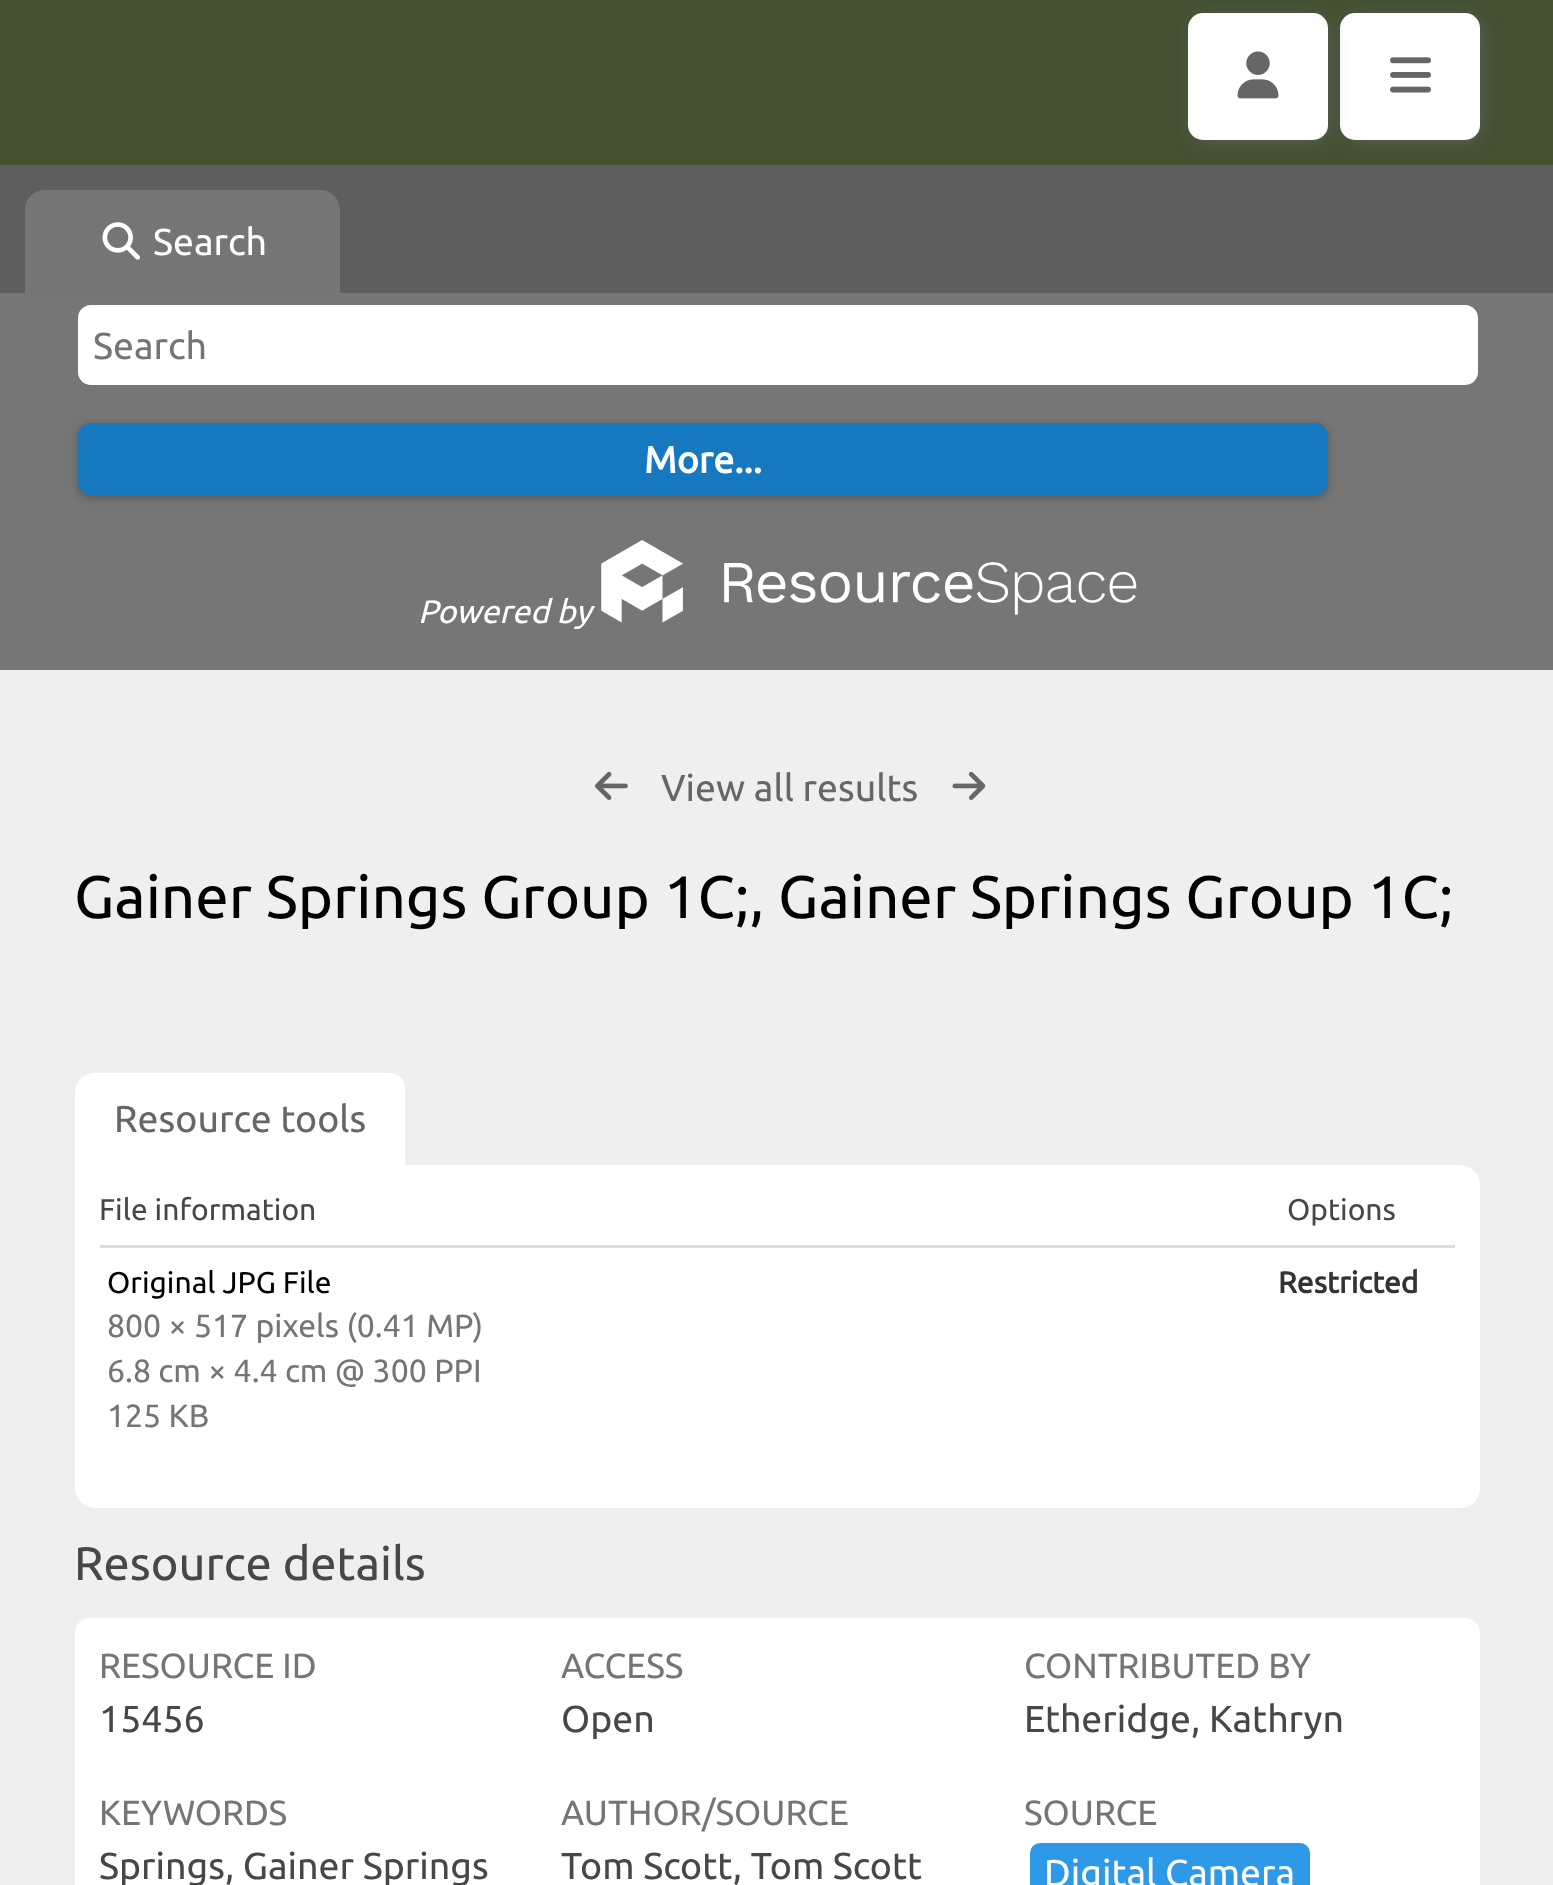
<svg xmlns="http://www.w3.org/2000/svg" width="1553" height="1885">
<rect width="100%" height="100%" fill="#efefef"/>
<rect width="1553" height="165" fill="#435132"/>
<rect y="165" width="1553" height="128" fill="#5e5e5e"/>
<rect x="1348" y="20" width="130" height="118" rx="10" fill="#666" filter="blur(10px)"/>
<rect x="1340" y="13" width="140" height="127" rx="15" fill="#fff"/>
<rect x="1195" y="20" width="130" height="118" rx="10" fill="#666" filter="blur(10px)"/>
<rect x="1188" y="13" width="140" height="127" rx="15" fill="#fff"/>
<image x="1237" y="51" width="42" height="48" href="media/1.png"/>
<image x="1390" y="57" width="41" height="36" href="media/2.png"/>
<rect y="293" width="1553" height="377" fill="#767676"/>
<path d="M45 190h275c11 0 20 9 20 20v83h-315v-83c0-11 9-20 20-20z" fill="#757575"/>
<image x="102" y="222" width="38" height="38" href="media/3.png"/>
<text x="153" y="255" style="font-family:Ubuntu;font-size:37.5px;fill:#fff">Search</text>
<rect x="78" y="305" width="1400" height="80" rx="13" fill="#fff"/>
<text x="93" y="359" style="font-family:Ubuntu;font-size:37.5px;fill:#757575">Search</text>
<rect x="78" y="425" width="1250" height="73" rx="13" fill="#00000040" filter="blur(4px)"/>
<rect x="78" y="423" width="1250" height="72" rx="13" fill="#1679c0"/>
<text x="644" y="473" style="font-family:Ubuntu;font-size:37.5px;font-weight:bold;fill:#fff">More...</text>
<text x="418" y="623" style="font-family:Ubuntu;font-size:32.5px;font-style:italic;fill:#fff">Powered by</text>
<image x="601" y="540" width="536" height="83" href="media/4.png"/>
<image x="595" y="771" width="33" height="29" href="media/5.png"/>
<text x="661" y="801" style="font-family:Ubuntu;font-size:37.5px;fill:#666">View all results</text>
<image x="952" y="771" width="34" height="29" href="media/6.png"/>
<text x="74" y="918" style="font-family:Ubuntu;font-size:60px;fill:#000">Gainer Springs Group 1C;, Gainer Springs Group 1C;</text>
<path d="M95 1073h295c8.5 0 15 6.5 15 15v80h-330v-75c0-11 9-20 20-20z" fill="#fff"/>
<text x="114" y="1132" style="font-family:Ubuntu;font-size:37.5px;fill:#666">Resource tools</text>
<path d="M75 1165h1385c11 0 20 9 20 20v303c0 11-9 20-20 20h-1365c-11 0-20-9-20-20z" fill="#fff"/>
<text x="99" y="1220" style="font-family:Ubuntu;font-size:30px;fill:#474747">File information</text>
<text x="1287" y="1220" style="font-family:Ubuntu;font-size:30px;fill:#474747">Options</text>
<rect x="100" y="1245" width="1355" height="3" fill="#ddd"/>
<text x="107" y="1293" style="font-family:Ubuntu;font-size:30px;fill:#000">Original JPG File</text>
<text x="107" y="1337" style="font-family:Ubuntu;font-size:32px;fill:#757575">800 × 517 pixels (0.41 MP)</text>
<text x="107" y="1382" style="font-family:Ubuntu;font-size:32px;fill:#757575">6.8 cm × 4.4 cm @ 300 PPI</text>
<text x="107" y="1427" style="font-family:Ubuntu;font-size:32px;fill:#757575">125 KB</text>
<text x="1278" y="1293" style="font-family:Ubuntu;font-size:30px;font-weight:bold;fill:#333">Restricted</text>
<text x="74" y="1580" style="font-family:Ubuntu;font-size:47px;fill:#474747">Resource details</text>
<rect x="75" y="1618" width="1405" height="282" rx="15" fill="#fff"/>
<text x="99" y="1678" style="font-family:Ubuntu;font-size:35px;fill:#757575">RESOURCE ID</text>
<text x="99" y="1732" style="font-family:Ubuntu;font-size:37.5px;fill:#474747">15456</text>
<text x="561" y="1678" style="font-family:Ubuntu;font-size:35px;fill:#757575">ACCESS</text>
<text x="561" y="1732" style="font-family:Ubuntu;font-size:37.5px;fill:#474747">Open</text>
<text x="1024" y="1678" style="font-family:Ubuntu;font-size:35px;fill:#757575">CONTRIBUTED BY</text>
<text x="1024" y="1732" style="font-family:Ubuntu;font-size:37.5px;fill:#474747">Etheridge, Kathryn</text>
<text x="99" y="1825" style="font-family:Ubuntu;font-size:35px;fill:#757575">KEYWORDS</text>
<text x="99" y="1879" style="font-family:Ubuntu;font-size:37.5px;fill:#474747">Springs, Gainer Springs</text>
<text x="561" y="1825" style="font-family:Ubuntu;font-size:35px;fill:#757575">AUTHOR/SOURCE</text>
<text x="561" y="1879" style="font-family:Ubuntu;font-size:37.5px;fill:#474747">Tom Scott, Tom Scott</text>
<text x="1024" y="1825" style="font-family:Ubuntu;font-size:35px;fill:#757575">SOURCE</text>
<rect x="1030" y="1843" width="280" height="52" rx="10" fill="#2e99e6"/>
<text x="1044" y="1886" style="font-family:Ubuntu;font-size:37.5px;fill:#fff">Digital Camera</text>
</svg>
